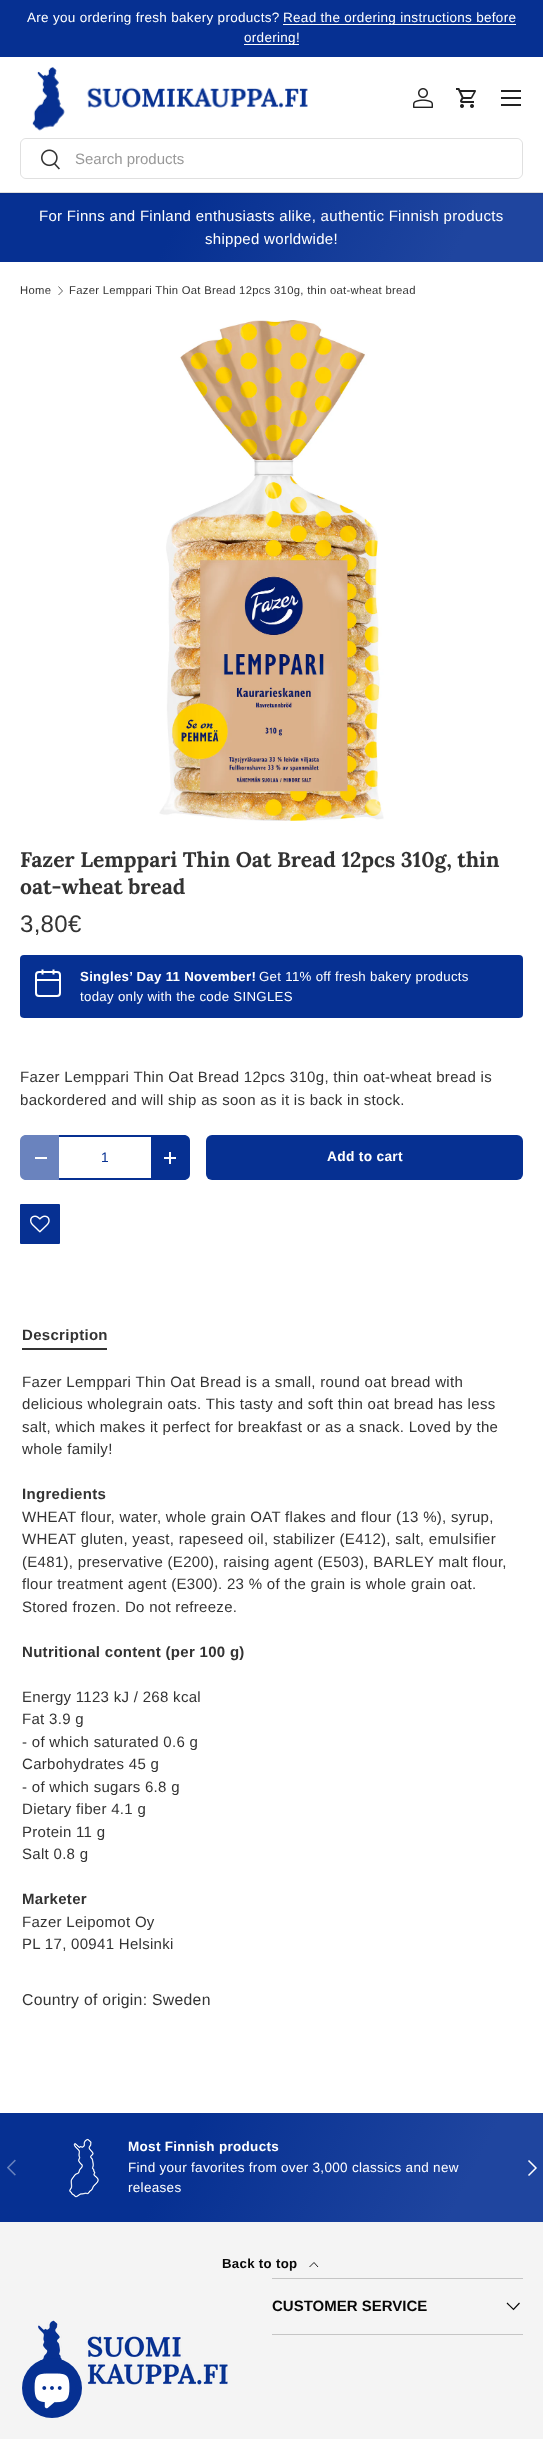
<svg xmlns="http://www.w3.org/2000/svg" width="543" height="2439">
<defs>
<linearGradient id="g1" gradientUnits="userSpaceOnUse" x1="42" y1="111" x2="501" y2="344"><stop offset="0.33" stop-color="#063092"/><stop offset="0.84" stop-color="#1f459f"/></linearGradient>
<clipPath id="clip1"><rect x="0" y="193" width="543" height="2"/></clipPath>
<linearGradient id="g2" gradientUnits="userSpaceOnUse" x1="-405" y1="1045" x2="500" y2="1270"><stop offset="0.6" stop-color="#2e55ae"/><stop offset="0.6" stop-color="#063092"/><stop offset="1" stop-color="#063092"/></linearGradient>
<linearGradient id="g3" gradientUnits="userSpaceOnUse" x1="34" y1="2046" x2="509" y2="2289"><stop offset="0.33" stop-color="#063092"/><stop offset="0.84" stop-color="#1f459f"/></linearGradient>
</defs>
<rect width="100%" height="100%" fill="#fff"/>
<rect y="193" width="543" height="69" fill="url(#g1)"/>
<g clip-path="url(#clip1)">
<rect x="-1" y="56" width="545" height="138" fill="#00000014" filter="blur(1.5px)"/>
</g>
<rect width="543" height="57" fill="#063092"/>
<text x="27" y="22" style="font-family:Liberation Sans;font-size:13.5px;letter-spacing:0.3px;fill:#fff">Are you ordering fresh bakery products?</text>
<rect x="283" y="24" width="233" height="1" fill="#fff"/>
<text x="283" y="22" style="font-family:Liberation Sans;font-size:13.5px;letter-spacing:0.3px;fill:#fff">Read the ordering instructions before</text>
<rect x="244" y="44" width="55" height="1" fill="#fff"/>
<text x="244" y="42" style="font-family:Liberation Sans;font-size:13.5px;letter-spacing:0.3px;fill:#fff">ordering!</text>
<image x="32" y="67" width="276" height="64" href="media/1.png"/>
<image x="413" y="88" width="20" height="20" href="media/2.png"/>
<image x="456" y="88" width="20" height="20" href="media/3.png"/>
<rect x="501" y="90" width="20" height="2" fill="#222"/>
<rect x="501" y="104" width="20" height="2" fill="#222"/>
<rect x="501" y="97" width="20" height="2" fill="#222"/>
<rect x="20.5" y="138.5" width="502" height="40" rx="5.5" fill="none" stroke="#e0e0e0"/>
<rect x="21" y="139" width="501" height="39" rx="6" fill="#fff"/>
<image x="41" y="149" width="19" height="21" href="media/4.png"/>
<text x="75" y="164" style="font-family:Liberation Sans;font-size:15px;fill:#999">Search products</text>
<rect y="192" width="543" height="1" fill="#dedede"/>
<text x="39" y="221" style="font-family:Liberation Sans;font-size:15px;letter-spacing:0.3px;fill:#fff">For Finns and Finland enthusiasts alike, authentic Finnish products</text>
<text x="205" y="244" style="font-family:Liberation Sans;font-size:15px;letter-spacing:0.3px;fill:#fff">shipped worldwide!</text>
<text x="20" y="294" style="font-family:Liberation Sans;font-size:11.25px;letter-spacing:0.3px;fill:#333">Home</text>
<path d="M58.5 286.5l4 4.5l-4 4" fill="none" stroke="#333" stroke-width="0.8"/>
<text x="69" y="294" style="font-family:Liberation Sans;font-size:11.25px;letter-spacing:0.3px;fill:#333">Fazer Lemppari Thin Oat Bread 12pcs 310g, thin oat-wheat bread</text>
<image x="159" y="320" width="225" height="501" href="media/5.png"/>
<text x="20" y="867" style="font-family:Lora;font-size:21.15px;font-weight:bold;fill:#333">Fazer Lemppari Thin Oat Bread 12pcs 310g, thin</text>
<text x="20" y="894" style="font-family:Lora;font-size:21.15px;font-weight:bold;fill:#333">oat-wheat bread</text>
<text x="20" y="932" style="font-family:Liberation Sans;font-size:24px;letter-spacing:0.3px;fill:#333">3,80€</text>
<rect x="20" y="955" width="503" height="63" rx="4" fill="#063092"/>
<rect x="36" y="972" width="24" height="24" rx="3" fill="none" stroke="#fff" stroke-width="2"/>
<path d="M53.5 969.5v5m-11-5v5" fill="none" stroke="#fff" stroke-width="2"/>
<rect x="36" y="979" width="24" height="2" fill="#fff"/>
<text x="80" y="981" style="font-family:Liberation Sans;font-size:13.25px;font-weight:bold;letter-spacing:0.3px;fill:#fff">Singles’ Day 11 November!</text>
<text x="259" y="981" style="font-family:Liberation Sans;font-size:13.25px;letter-spacing:0.3px;fill:#fff">Get 11% off fresh bakery products</text>
<text x="80" y="1001" style="font-family:Liberation Sans;font-size:13.25px;letter-spacing:0.3px;fill:#fff">today only with the code SINGLES</text>
<text x="20" y="1082" style="font-family:Liberation Sans;font-size:15px;letter-spacing:0.3px;fill:#333">Fazer Lemppari Thin Oat Bread 12pcs 310g, thin oat-wheat bread is</text>
<text x="20" y="1105" style="font-family:Liberation Sans;font-size:15px;letter-spacing:0.3px;fill:#333">backordered and will ship as soon as it is back in stock.</text>
<path d="M26 1135h33v45h-33c-3.5 0-6-2.5-6-6v-33c0-3.5 2.5-6 6-6z" fill="#6a83be"/>
<rect x="35" y="1157" width="12" height="2" fill="#fff"/>
<rect x="59" y="1178" width="92" height="2" fill="#063092"/>
<rect x="59" y="1135" width="92" height="2" fill="#063092"/>
<text x="101" y="1162" style="font-family:Liberation Sans;font-size:13.75px;fill:#063092">1</text>
<path d="M151 1135h33c3.5 0 6 2.5 6 6v33c0 3.5-2.5 6-6 6h-33z" fill="#063092"/>
<rect x="164" y="1157" width="12" height="2" fill="#fff"/>
<rect x="169" y="1152" width="2" height="12" fill="#fff"/>
<rect x="206" y="1135" width="317" height="45" rx="6" fill="url(#g2)"/>
<text x="327" y="1161" style="font-family:Liberation Sans;font-size:13.75px;font-weight:bold;letter-spacing:0.3px;fill:#fff">Add to cart</text>
<rect x="20" y="1204" width="40" height="40" rx="1" fill="#063092"/>
<image x="30" y="1215" width="20" height="18" href="media/6.png"/>
<text x="22" y="1340" style="font-family:Liberation Sans;font-size:15px;font-weight:bold;letter-spacing:0.3px;fill:#333">Description</text>
<rect x="22" y="1348" width="85" height="2" fill="#333"/>
<text x="22" y="1387" style="font-family:Liberation Sans;font-size:15px;letter-spacing:0.3px;fill:#333">Fazer Lemppari Thin Oat Bread is a small, round oat bread with</text>
<text x="22" y="1409" style="font-family:Liberation Sans;font-size:15px;letter-spacing:0.3px;fill:#333">delicious wholegrain oats. This tasty and soft thin oat bread has less</text>
<text x="22" y="1432" style="font-family:Liberation Sans;font-size:15px;letter-spacing:0.3px;fill:#333">salt, which makes it perfect for breakfast or as a snack. Loved by the</text>
<text x="22" y="1454" style="font-family:Liberation Sans;font-size:15px;letter-spacing:0.3px;fill:#333">whole family!</text>
<text x="22" y="1499" style="font-family:Liberation Sans;font-size:15px;font-weight:bold;letter-spacing:0.3px;fill:#333">Ingredients</text>
<text x="22" y="1522" style="font-family:Liberation Sans;font-size:15px;letter-spacing:0.3px;fill:#333">WHEAT flour, water, whole grain OAT flakes and flour (13 %), syrup,</text>
<text x="22" y="1544" style="font-family:Liberation Sans;font-size:15px;letter-spacing:0.3px;fill:#333">WHEAT gluten, yeast, rapeseed oil, stabilizer (E412), salt, emulsifier</text>
<text x="22" y="1567" style="font-family:Liberation Sans;font-size:15px;letter-spacing:0.3px;fill:#333">(E481), preservative (E200), raising agent (E503), BARLEY malt flour,</text>
<text x="22" y="1589" style="font-family:Liberation Sans;font-size:15px;letter-spacing:0.3px;fill:#333">flour treatment agent (E300). 23 % of the grain is whole grain oat.</text>
<text x="22" y="1612" style="font-family:Liberation Sans;font-size:15px;letter-spacing:0.3px;fill:#333">Stored frozen. Do not refreeze.</text>
<text x="22" y="1657" style="font-family:Liberation Sans;font-size:15px;font-weight:bold;letter-spacing:0.3px;fill:#333">Nutritional content (per 100 g)</text>
<text x="22" y="1702" style="font-family:Liberation Sans;font-size:15px;letter-spacing:0.3px;fill:#333">Energy 1123 kJ / 268 kcal</text>
<text x="22" y="1724" style="font-family:Liberation Sans;font-size:15px;letter-spacing:0.3px;fill:#333">Fat 3.9 g</text>
<text x="22" y="1747" style="font-family:Liberation Sans;font-size:15px;letter-spacing:0.3px;fill:#333">- of which saturated 0.6 g</text>
<text x="22" y="1769" style="font-family:Liberation Sans;font-size:15px;letter-spacing:0.3px;fill:#333">Carbohydrates 45 g</text>
<text x="22" y="1792" style="font-family:Liberation Sans;font-size:15px;letter-spacing:0.3px;fill:#333">- of which sugars 6.8 g</text>
<text x="22" y="1814" style="font-family:Liberation Sans;font-size:15px;letter-spacing:0.3px;fill:#333">Dietary fiber 4.1 g</text>
<text x="22" y="1837" style="font-family:Liberation Sans;font-size:15px;letter-spacing:0.3px;fill:#333">Protein 11 g</text>
<text x="22" y="1859" style="font-family:Liberation Sans;font-size:15px;letter-spacing:0.3px;fill:#333">Salt 0.8 g</text>
<text x="22" y="1904" style="font-family:Liberation Sans;font-size:15px;font-weight:bold;letter-spacing:0.3px;fill:#333">Marketer</text>
<text x="22" y="1927" style="font-family:Liberation Sans;font-size:15px;letter-spacing:0.3px;fill:#333">Fazer Leipomot Oy</text>
<text x="22" y="1949" style="font-family:Liberation Sans;font-size:15px;letter-spacing:0.3px;fill:#333">PL 17, 00941 Helsinki</text>
<text x="22" y="2005" style="font-family:Liberation Sans;font-size:15.75px;letter-spacing:0.3px;fill:#333">Country of origin: Sweden</text>
<rect y="2113" width="543" height="109" fill="url(#g3)"/>
<image x="69" y="2138" width="30" height="60" href="media/7.png"/>
<text x="128" y="2151" style="font-family:Liberation Sans;font-size:13.5px;font-weight:bold;letter-spacing:0.3px;fill:#fff">Most Finnish products</text>
<text x="128" y="2172" style="font-family:Liberation Sans;font-size:13.5px;letter-spacing:0.3px;fill:#fff">Find your favorites from over 3,000 classics and new</text>
<text x="128" y="2192" style="font-family:Liberation Sans;font-size:13.5px;letter-spacing:0.3px;fill:#fff">releases</text>
<image x="7" y="2159" width="9" height="17" href="media/8.png"/>
<path d="M528.5 2160.5l7.5 7.5l-7.5 7.5" fill="none" stroke="#fff" stroke-width="1.5"/>
<rect y="2222" width="543" height="217" fill="#f4f4f4"/>
<text x="222" y="2268" style="font-family:Liberation Sans;font-size:13.25px;font-weight:bold;letter-spacing:0.3px;fill:#070707">Back to top</text>
<path d="M309.5 2267l4.5-4.5l4 4.5" fill="none" stroke="#070707" stroke-width="0.9"/>
<rect x="272" y="2278" width="251" height="1" fill="#c5c5c5"/>
<rect x="272" y="2334" width="251" height="1" fill="#c5c5c5"/>
<text x="272" y="2311" style="font-family:Liberation Sans;font-size:15px;font-weight:bold;fill:#070707">CUSTOMER SERVICE</text>
<path d="M519.5 2303l-6 6.5l-6.5-6.5" fill="none" stroke="#070707" stroke-width="1.2"/>
<image x="38" y="2320" width="190" height="65" href="media/9.png"/>
<circle cx="52" cy="2388" r="30" fill="#063092"/>
<image x="34" y="2373" width="36" height="36" href="media/10.png"/>
</svg>
